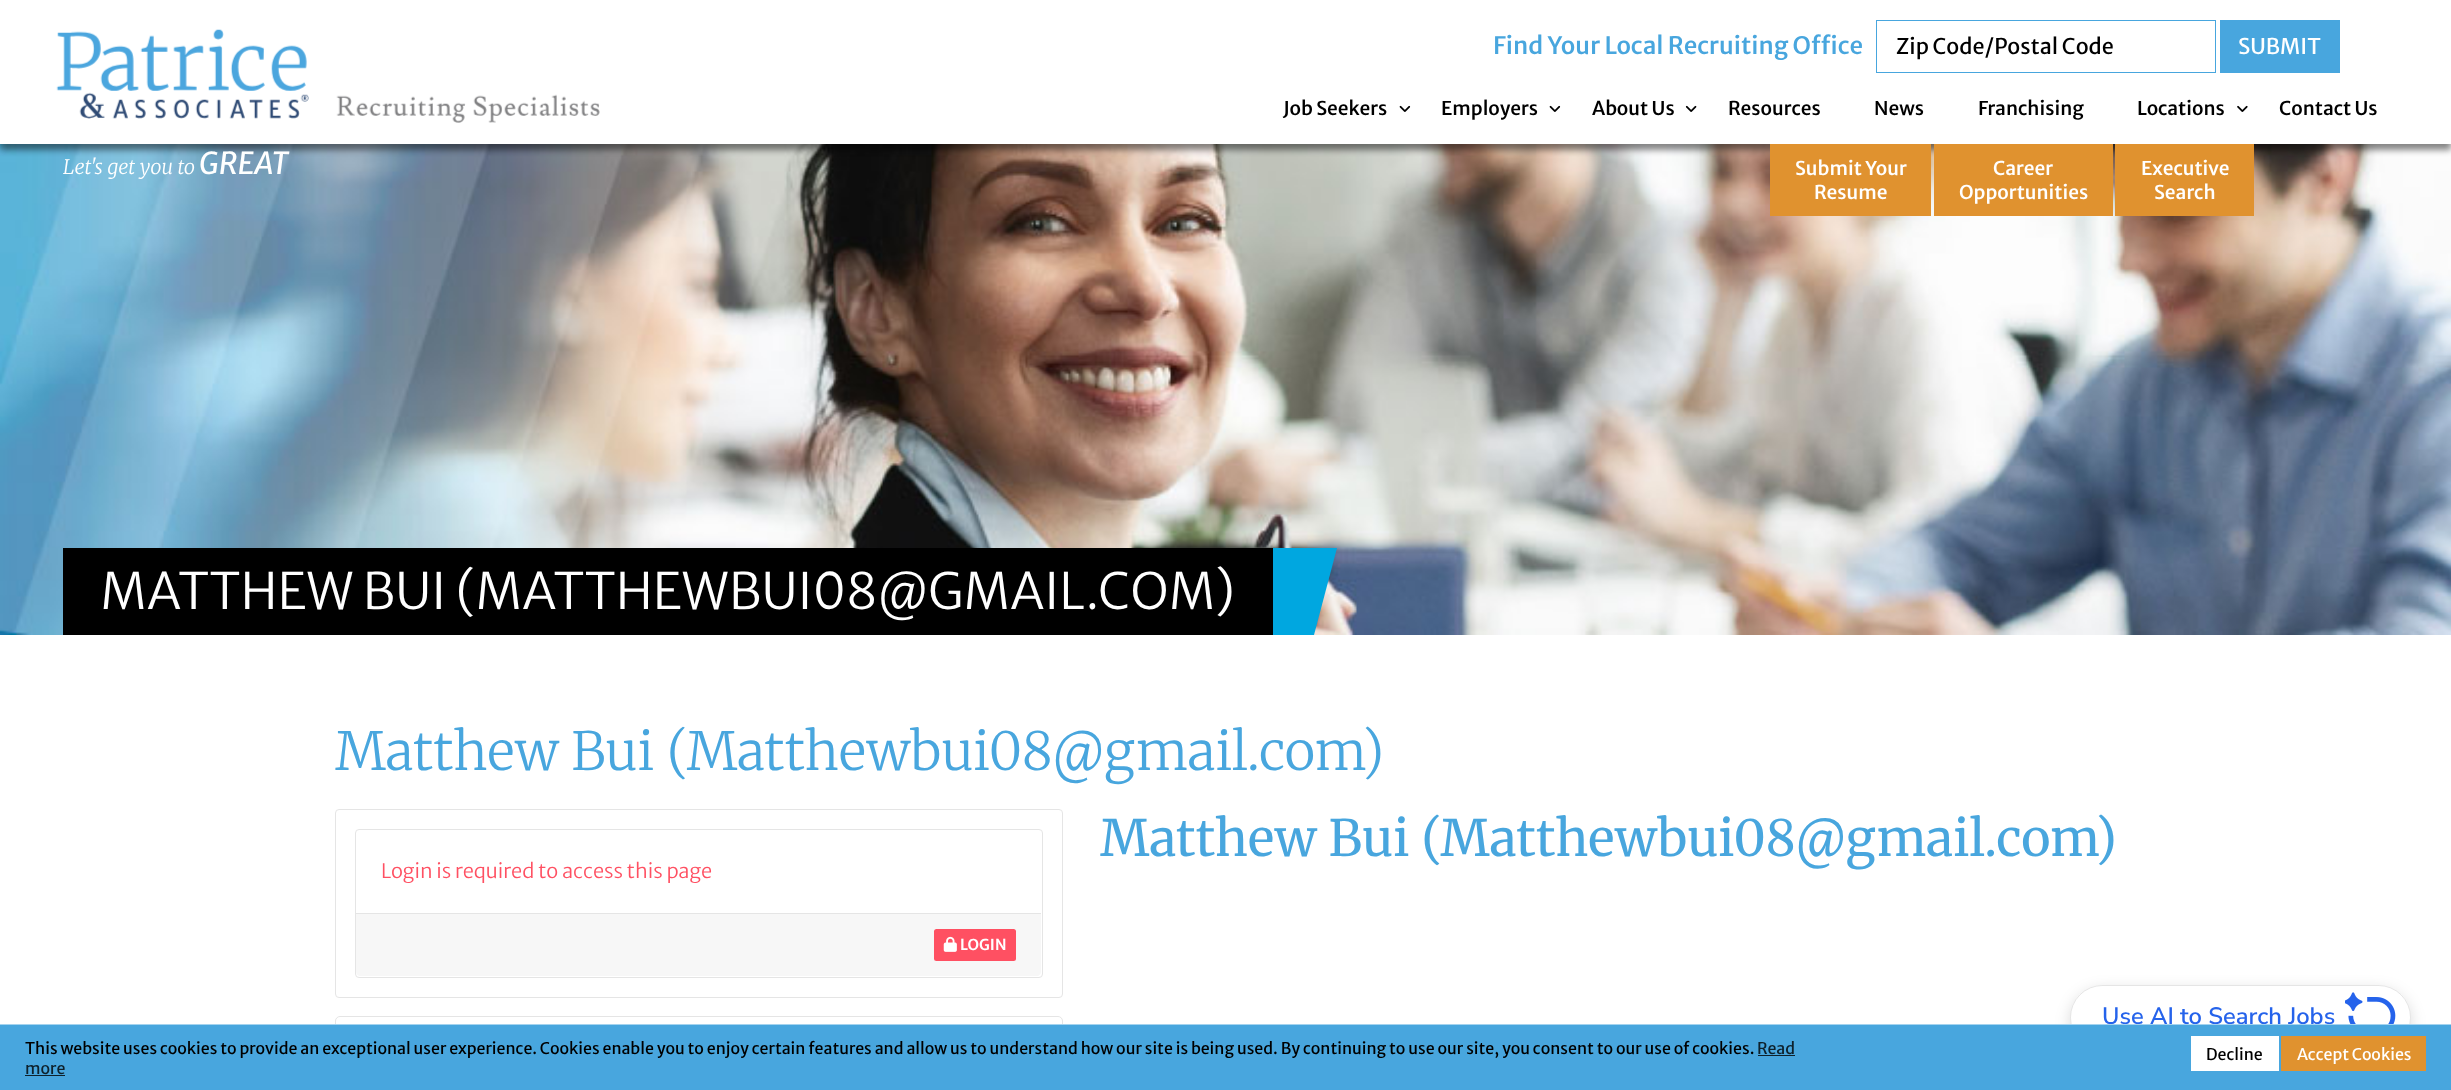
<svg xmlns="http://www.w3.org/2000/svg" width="2451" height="1090">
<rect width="100%" height="100%" fill="#fff"/>
<image x="0" y="144" width="2451" height="491" href="media/5.png"/>
<rect y="6" width="2451" height="144" fill="#00000078" filter="blur(3px)"/>
<rect width="2451" height="144" fill="#fff"/>
<image x="56" y="29" width="544" height="94" href="media/1.png"/>
<text x="1493" y="54" style="font-family:Merriweather Sans;font-size:24px;font-weight:500;fill:#48a6de">Find Your Local Recruiting Office</text>
<rect x="1876.5" y="20.5" width="339" height="52" fill="none" stroke="#48a6de"/>
<text x="1896" y="54" style="font-family:Merriweather Sans;font-size:21.6px;fill:#000">Zip Code/Postal Code</text>
<rect x="2220" y="20" width="120" height="53" fill="#48a6de"/>
<text x="2238" y="54" style="font-family:Merriweather Sans;font-size:21.6px;fill:#fff">SUBMIT</text>
<text x="1283" y="115" style="font-family:Merriweather Sans;font-size:19px;font-weight:500;fill:#000">Job Seekers</text>
<image x="1399" y="105" width="12" height="7" href="media/2.png"/>
<text x="1441" y="115" style="font-family:Merriweather Sans;font-size:19px;font-weight:500;fill:#000">Employers</text>
<image x="1549" y="105" width="12" height="7" href="media/2.png"/>
<text x="1592" y="115" style="font-family:Merriweather Sans;font-size:19px;font-weight:500;fill:#000">About Us</text>
<image x="1685" y="105" width="12" height="7" href="media/3.png"/>
<text x="1728" y="115" style="font-family:Merriweather Sans;font-size:19px;font-weight:500;fill:#000">Resources</text>
<text x="1874" y="115" style="font-family:Merriweather Sans;font-size:19px;font-weight:500;fill:#000">News</text>
<text x="1978" y="115" style="font-family:Merriweather Sans;font-size:19px;font-weight:500;fill:#000">Franchising</text>
<text x="2137" y="115" style="font-family:Merriweather Sans;font-size:19px;font-weight:500;fill:#000">Locations</text>
<image x="2237" y="105" width="11" height="7" href="media/4.png"/>
<text x="2279" y="115" style="font-family:Merriweather Sans;font-size:19px;font-weight:500;fill:#000">Contact Us</text>
<rect x="1770" y="144" width="161" height="72" fill="#e0922f"/>
<text x="1795" y="175" style="font-family:Merriweather Sans;font-size:19px;font-weight:500;fill:#fff">Submit Your</text>
<text x="1814" y="199" style="font-family:Merriweather Sans;font-size:19px;font-weight:500;fill:#fff">Resume</text>
<rect x="1934" y="144" width="179" height="72" fill="#e0922f"/>
<text x="1993" y="175" style="font-family:Merriweather Sans;font-size:19px;font-weight:500;fill:#fff">Career</text>
<text x="1959" y="199" style="font-family:Merriweather Sans;font-size:19px;font-weight:500;fill:#fff">Opportunities</text>
<rect x="2115" y="144" width="139" height="72" fill="#e0922f"/>
<text x="2141" y="175" style="font-family:Merriweather Sans;font-size:19px;font-weight:500;fill:#fff">Executive</text>
<text x="2154" y="199" style="font-family:Merriweather Sans;font-size:19px;font-weight:500;fill:#fff">Search</text>
<text x="63" y="174" style="font-family:Merriweather;font-size:20px;font-weight:300;font-style:italic;fill:#fff">Let's get you to</text>
<text x="199" y="174" style="font-family:Merriweather Sans;font-size:30px;font-style:italic;fill:#fff">GREAT</text>
<rect x="63" y="548" width="1210" height="87" fill="#000"/>
<text x="100" y="609" style="font-family:Merriweather Sans;font-size:50px;font-weight:300;fill:#fff">MATTHEW BUI (MATTHEWBUI08@GMAIL.COM)</text>
<path d="M1273 548v87h41l23-87z" fill="#00a7e0"/>
<text x="335" y="770" style="font-family:Merriweather;font-size:52.5px;font-weight:300;fill:#48a6de">Matthew Bui (Matthewbui08@gmail.com)</text>
<text x="1100" y="856" style="font-family:Merriweather;font-size:50px;fill:#48a6de">Matthew Bui (Matthewbui08@gmail.com)</text>
<rect x="335.5" y="809.5" width="727" height="188" rx="3.5" fill="none" stroke="#e5e5e5"/>
<rect x="355.5" y="829.5" width="687" height="148" rx="3.5" fill="none" stroke="#e5e5e5"/>
<text x="381" y="878" style="font-family:Merriweather Sans;font-size:20px;font-weight:300;fill:#ff5062">Login is required to access this page</text>
<path d="M356 913h685v59c0 2-2 4-4 4h-677c-2 0-4-2-4-4z" fill="#f7f7f7"/>
<rect x="356" y="913" width="685" height="1" fill="#e5e5e5"/>
<rect x="934" y="929" width="82" height="32" rx="2.5" fill="#ff5062"/>
<image x="943" y="936" width="14" height="16" href="media/6.png"/>
<text x="960" y="950" style="font-family:Merriweather Sans;font-size:15px;font-weight:600;fill:#fff">LOGIN</text>
<path d="M340 1016.5h718c2.5 0 4.5 2 4.5 4.5v59.5h-727v-59.5c0-2.5 2-4.5 4.5-4.5z" fill="none" stroke="#e5e5e5"/>
<rect x="2070" y="990" width="341" height="65" rx="32.5" fill="#00000026" filter="blur(7.5px)"/>
<rect x="2070" y="985" width="341" height="65" rx="32.5" fill="#fff"/>
<rect x="2070.5" y="985.5" width="340" height="64" rx="32" fill="none" stroke="#0000001a"/>
<text x="2102" y="1024" style="font-family:Nunito Sans;font-size:23.75px;font-weight:600;fill:#2563eb">Use AI to Search Jobs</text>
<image x="2345" y="992" width="51" height="32" href="media/7.png"/>
<rect y="1025" width="2451" height="65" fill="#48a6de"/>
<rect y="1024" width="2451" height="1" fill="#a4d3ef"/>
<text x="25" y="1054" style="font-family:Merriweather Sans;font-size:16px;fill:#000">This website uses cookies to provide an exceptional user experience. Cookies enable you to enjoy certain features and allow us to understand how our site is being used. By continuing to use our site, you consent to our use of cookies.</text>
<text x="1757" y="1054" style="font-family:Merriweather Sans;font-size:16px;fill:#0e212c">Read</text>
<rect x="1758" y="1055" width="37" height="1" fill="#0e212c"/>
<text x="25" y="1074" style="font-family:Merriweather Sans;font-size:16px;fill:#0e212c">more</text>
<rect x="25" y="1075" width="40" height="1" fill="#0e212c"/>
<rect x="2191" y="1036" width="88" height="35" fill="#fff"/>
<text x="2206" y="1060" style="font-family:Merriweather Sans;font-size:16px;fill:#000">Decline</text>
<rect x="2281" y="1036" width="145" height="35" fill="#e0922f"/>
<text x="2297" y="1060" style="font-family:Merriweather Sans;font-size:16px;fill:#fff">Accept Cookies</text>
</svg>
